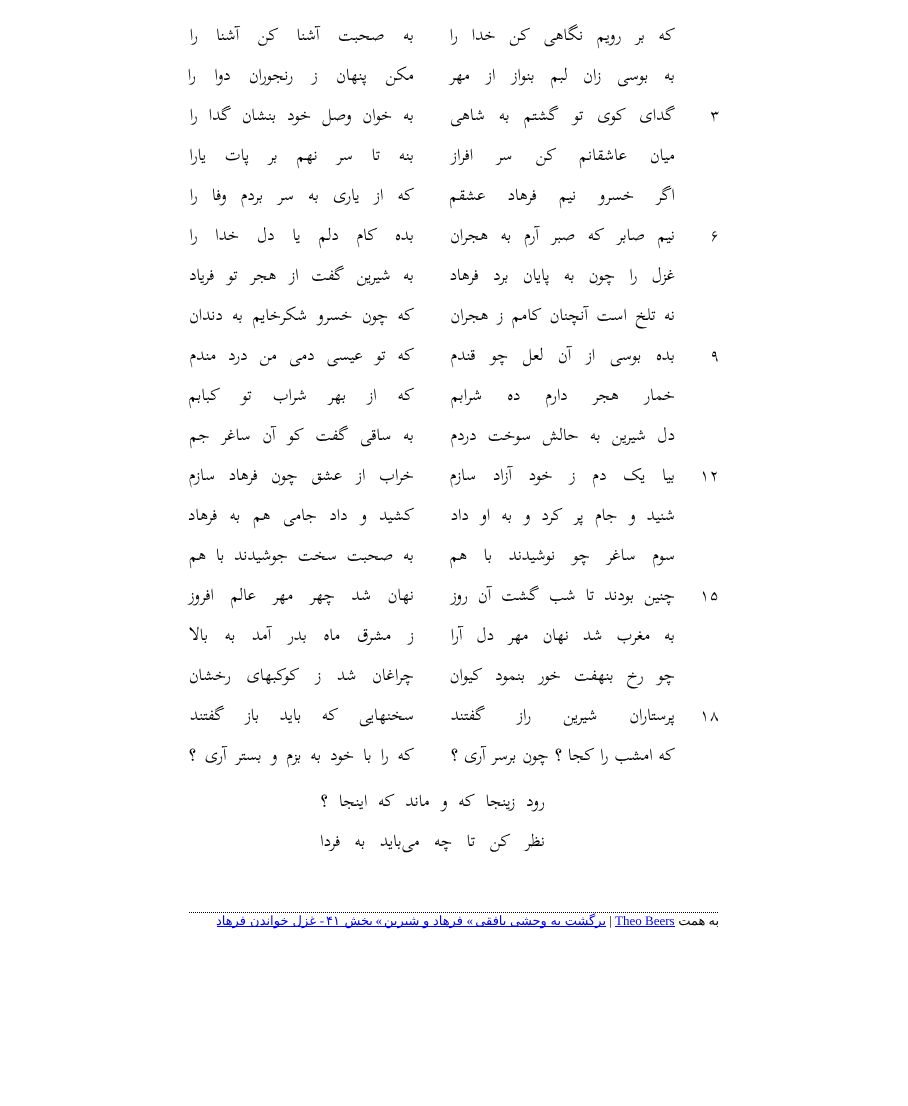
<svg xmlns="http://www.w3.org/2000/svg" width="908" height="1106">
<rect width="100%" height="100%" fill="#fff"/>
<text x="675" y="40" word-spacing="7.75" style="font-family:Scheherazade;font-size:24px;direction:rtl;fill:#000">که بر رویم نگاهی کن خدا را</text>
<text x="414" y="40" word-spacing="12.5" style="font-family:Scheherazade;font-size:24px;direction:rtl;fill:#000">به صحبت آشنا کن آشنا را</text>
<text x="675" y="80" word-spacing="9.75" style="font-family:Scheherazade;font-size:24px;direction:rtl;fill:#000">به بوسی زان لبم بنواز از مهر</text>
<text x="414" y="80" word-spacing="12.5" style="font-family:Scheherazade;font-size:24px;direction:rtl;fill:#000">مکن پنهان ز رنجوران دوا را</text>
<text x="710" y="120" style="font-family:Scheherazade;font-size:24px;fill:#000">۳</text>
<text x="675" y="120" word-spacing="8" style="font-family:Scheherazade;font-size:24px;direction:rtl;fill:#000">گدای کوی تو گشتم به شاهی</text>
<text x="414" y="120" word-spacing="5" style="font-family:Scheherazade;font-size:24px;direction:rtl;fill:#000">به خوان وصل خود بنشان گدا را</text>
<text x="675" y="160" word-spacing="17" style="font-family:Scheherazade;font-size:24px;direction:rtl;fill:#000">میان عاشقانم کن سر افراز</text>
<text x="414" y="160" word-spacing="12.75" style="font-family:Scheherazade;font-size:24px;direction:rtl;fill:#000">بنه تا سر نهم بر پات یارا</text>
<text x="675" y="200" word-spacing="16" style="font-family:Scheherazade;font-size:24px;direction:rtl;fill:#000">اگر خسرو نیم فرهاد عشقم</text>
<text x="414" y="200" word-spacing="8.25" style="font-family:Scheherazade;font-size:24px;direction:rtl;fill:#000">که از یاری به سر بردم وفا را</text>
<text x="710" y="240" style="font-family:Scheherazade;font-size:24px;fill:#000">۶</text>
<text x="675" y="240" word-spacing="6.5" style="font-family:Scheherazade;font-size:24px;direction:rtl;fill:#000">نیم صابر که صبر آرم به هجران</text>
<text x="414" y="240" word-spacing="11.75" style="font-family:Scheherazade;font-size:24px;direction:rtl;fill:#000">بده کام دلم یا دل خدا را</text>
<text x="675" y="280" word-spacing="8.25" style="font-family:Scheherazade;font-size:24px;direction:rtl;fill:#000">غزل را چون به پایان برد فرهاد</text>
<text x="414" y="280" word-spacing="6.5" style="font-family:Scheherazade;font-size:24px;direction:rtl;fill:#000">به شیرین گفت از هجر تو فریاد</text>
<text x="675" y="320" word-spacing="2.5" style="font-family:Scheherazade;font-size:24px;direction:rtl;fill:#000">نه تلخ است آنچنان کامم ز هجران</text>
<text x="414" y="320" word-spacing="3.5" style="font-family:Scheherazade;font-size:24px;direction:rtl;fill:#000">که چون خسرو شکرخایم به دندان</text>
<text x="710" y="360" style="font-family:Scheherazade;font-size:24px;fill:#000">۹</text>
<text x="675" y="360" word-spacing="8.5" style="font-family:Scheherazade;font-size:24px;direction:rtl;fill:#000">بده بوسی از آن لعل چو قندم</text>
<text x="414" y="360" word-spacing="6" style="font-family:Scheherazade;font-size:24px;direction:rtl;fill:#000">که تو عیسی دمی من درد مندم</text>
<text x="675" y="400" word-spacing="19" style="font-family:Scheherazade;font-size:24px;direction:rtl;fill:#000">خمار هجر دارم ده شرابم</text>
<text x="414" y="400" word-spacing="15" style="font-family:Scheherazade;font-size:24px;direction:rtl;fill:#000">که از بهر شراب تو کبابم</text>
<text x="675" y="440" word-spacing="5.25" style="font-family:Scheherazade;font-size:24px;direction:rtl;fill:#000">دل شیرین به حالش سوخت دردم</text>
<text x="414" y="440" word-spacing="5.75" style="font-family:Scheherazade;font-size:24px;direction:rtl;fill:#000">به ساقی گفت کو آن ساغر جم</text>
<text x="700" y="480" style="font-family:Scheherazade;font-size:24px;fill:#000">۱۲</text>
<text x="675" y="480" word-spacing="10.75" style="font-family:Scheherazade;font-size:24px;direction:rtl;fill:#000">بیا یک دم ز خود آزاد سازم</text>
<text x="414" y="480" word-spacing="7.5" style="font-family:Scheherazade;font-size:24px;direction:rtl;fill:#000">خراب از عشق چون فرهاد سازم</text>
<text x="675" y="520" word-spacing="5.25" style="font-family:Scheherazade;font-size:24px;direction:rtl;fill:#000">شنید و جام پر کرد و به او داد</text>
<text x="414" y="520" word-spacing="6.5" style="font-family:Scheherazade;font-size:24px;direction:rtl;fill:#000">کشید و داد جامی هم به فرهاد</text>
<text x="675" y="560" word-spacing="10.5" style="font-family:Scheherazade;font-size:24px;direction:rtl;fill:#000">سوم ساغر چو نوشیدند با هم</text>
<text x="414" y="560" word-spacing="3.75" style="font-family:Scheherazade;font-size:24px;direction:rtl;fill:#000">به صحبت سخت جوشیدند با هم</text>
<text x="700" y="600" style="font-family:Scheherazade;font-size:24px;fill:#000">۱۵</text>
<text x="675" y="600" word-spacing="4" style="font-family:Scheherazade;font-size:24px;direction:rtl;fill:#000">چنین بودند تا شب گشت آن روز</text>
<text x="414" y="600" word-spacing="10.5" style="font-family:Scheherazade;font-size:24px;direction:rtl;fill:#000">نهان شد چهر مهر عالم افروز</text>
<text x="675" y="640" word-spacing="8" style="font-family:Scheherazade;font-size:24px;direction:rtl;fill:#000">به مغرب شد نهان مهر دل آرا</text>
<text x="414" y="640" word-spacing="10.5" style="font-family:Scheherazade;font-size:24px;direction:rtl;fill:#000">ز مشرق ماه بدر آمد به بالا</text>
<text x="675" y="680" word-spacing="7" style="font-family:Scheherazade;font-size:24px;direction:rtl;fill:#000">چو رخ بنهفت خور بنمود کیوان</text>
<text x="414" y="680" word-spacing="9.75" style="font-family:Scheherazade;font-size:24px;direction:rtl;fill:#000">چراغان شد ز کوکبهای رخشان</text>
<text x="700" y="720" style="font-family:Scheherazade;font-size:24px;fill:#000">۱۸</text>
<text x="675" y="720" word-spacing="26" style="font-family:Scheherazade;font-size:24px;direction:rtl;fill:#000">پرستاران شیرین راز گفتند</text>
<text x="414" y="720" word-spacing="14.5" style="font-family:Scheherazade;font-size:24px;direction:rtl;fill:#000">سخنهایی که باید باز گفتند</text>
<text x="675" y="760" style="font-family:Scheherazade;font-size:24px;direction:rtl;fill:#000">که امشب را کجا ؟ چون برسر آری ؟</text>
<text x="414" y="760" word-spacing="3" style="font-family:Scheherazade;font-size:24px;direction:rtl;fill:#000">که را با خود به بزم و بستر آری ؟</text>
<text x="545" y="806" word-spacing="5" style="font-family:Scheherazade;font-size:24px;direction:rtl;fill:#000">رود زینجا که و ماند که اینجا ؟</text>
<text x="545" y="846" word-spacing="8.5" style="font-family:Scheherazade;font-size:24px;direction:rtl;fill:#000">نظر کن تا چه می‌باید به فردا</text>
<path d="M189 912.5h530" fill="none" stroke="#000" stroke-dasharray="1 1"/>
<text x="719" y="925" word-spacing="-1" style="font-family:DejaVu Sans;font-size:13px;direction:rtl;fill:#000">به همت</text>
<text x="615" y="925" style="font-family:Liberation Serif;font-size:13px;fill:#00e">Theo Beers</text>
<rect x="615" y="926" width="60" height="1" fill="#00e"/>
<text x="609" y="925" style="font-family:Liberation Serif;font-size:13px;fill:#000">|</text>
<rect x="217" y="926" width="389" height="1" fill="#00e"/>
<text x="606" y="925" word-spacing="-0.5" style="font-family:DejaVu Sans;font-size:13px;direction:rtl;fill:#00e">برگشت به وحشی بافقی</text>
<text x="473" y="925" style="font-family:Liberation Serif;font-size:13px;direction:rtl;fill:#00e">»</text>
<text x="463" y="925" word-spacing="-0.5" style="font-family:DejaVu Sans;font-size:13px;direction:rtl;fill:#00e">فرهاد و شیرین</text>
<text x="382" y="925" style="font-family:Liberation Serif;font-size:13px;direction:rtl;fill:#00e">»</text>
<text x="373" y="925" style="font-family:DejaVu Sans;font-size:13px;direction:rtl;fill:#00e">بخش</text>
<text x="326" y="925" style="font-family:DejaVu Sans;font-size:13px;fill:#00e">۴۱</text>
<text x="324" y="925" style="font-family:Liberation Serif;font-size:13px;direction:rtl;fill:#00e">-</text>
<text x="316" y="925" style="font-family:DejaVu Sans;font-size:13px;direction:rtl;fill:#00e">غزل خواندن فرهاد</text>
</svg>
